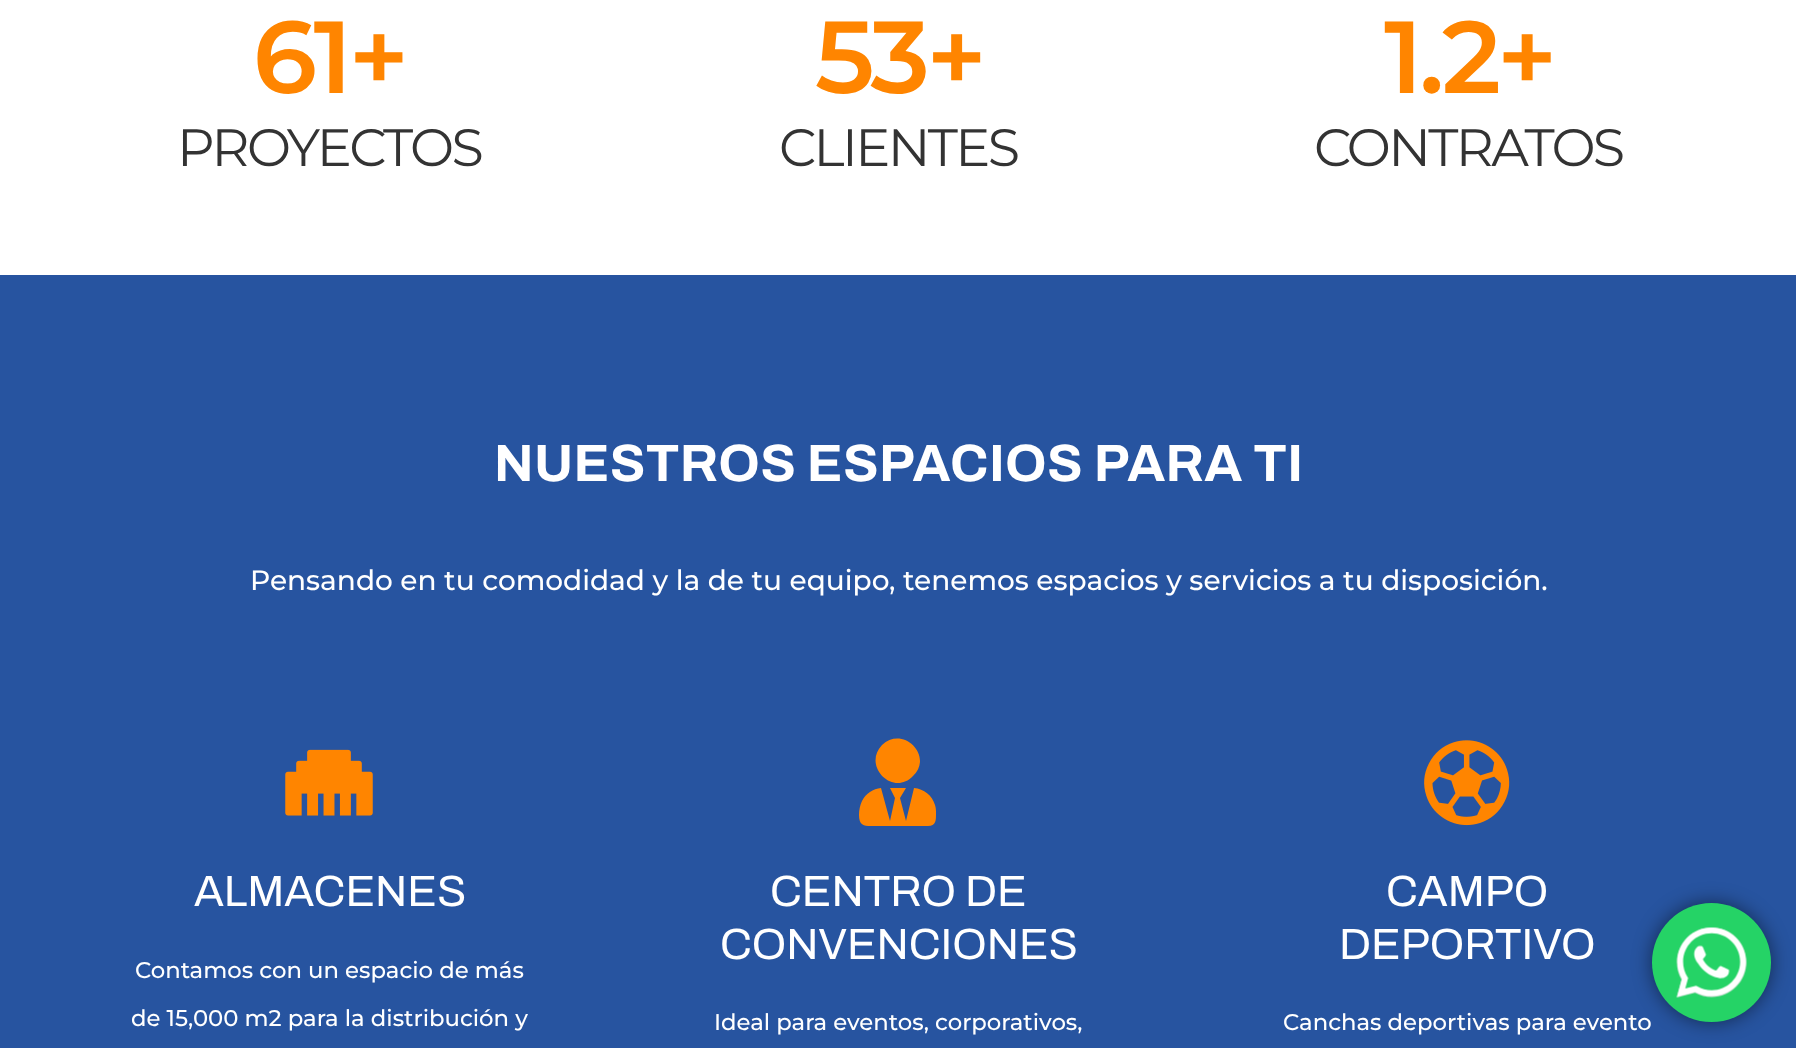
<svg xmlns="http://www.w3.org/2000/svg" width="1796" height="1048">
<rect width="100%" height="100%" fill="#fff"/>
<text x="253" y="93" style="font-family:Montserrat;font-size:102px;font-weight:600;letter-spacing:-3.5px;fill:#ff8500">61+</text>
<text x="177" y="166" style="font-family:Montserrat;font-size:52.5px;letter-spacing:-2.6px;fill:#333">PROYECTOS</text>
<text x="815" y="93" style="font-family:Montserrat;font-size:102px;font-weight:600;letter-spacing:-3.5px;fill:#ff8500">53+</text>
<text x="779" y="166" style="font-family:Montserrat;font-size:52.5px;letter-spacing:-2.6px;fill:#333">CLIENTES</text>
<text x="1384" y="93" style="font-family:Montserrat;font-size:102px;font-weight:600;letter-spacing:-3.5px;fill:#ff8500">1.2+</text>
<text x="1314" y="166" style="font-family:Montserrat;font-size:52.5px;letter-spacing:-2.6px;fill:#333">CONTRATOS</text>
<rect y="275" width="1796" height="773" fill="#2754a0"/>
<text x="494" y="481" style="font-family:Archivo;font-size:52.5px;font-weight:bold;letter-spacing:0.35px;fill:#fff">NUESTROS ESPACIOS PARA TI</text>
<text x="250" y="590" style="font-family:Montserrat;font-size:28px;font-weight:500;fill:#fff">Pensando en tu comodidad y la de tu equipo, tenemos espacios y servicios a tu disposición.</text>
<image x="285" y="749" width="88" height="67" href="media/1.png"/>
<text x="194" y="906" style="font-family:Archivo;font-size:43.75px;fill:#fff">ALMACENES</text>
<text x="135" y="978" style="font-family:Montserrat;font-size:22.75px;font-weight:500;fill:#fff">Contamos con un espacio de más</text>
<text x="131" y="1026" style="font-family:Montserrat;font-size:22.75px;font-weight:500;fill:#fff">de 15,000 m2 para la distribución y</text>
<path d="M913 776c-20 21-51-10-31-31c21-20 52 11 31 31zm1 12c10 1 18 7 21 17c1 3 1 6 1 9c0 6 0 12-8 12h-50c-11 0-19 2-19-11c0-5 1-10 3-14c4-8 11-12 19-13l9 33l5-23l-5-10h16l-6 10l6 23z" fill="#ff8500"/>
<text x="770" y="906" style="font-family:Archivo;font-size:43.75px;fill:#fff">CENTRO DE</text>
<text x="720" y="959" style="font-family:Archivo;font-size:43.75px;fill:#fff">CONVENCIONES</text>
<text x="714" y="1030" style="font-family:Montserrat;font-size:22.75px;font-weight:500;fill:#fff">Ideal para eventos, corporativos,</text>
<image x="1424" y="740" width="86" height="86" href="media/2.png"/>
<text x="1386" y="906" style="font-family:Archivo;font-size:43.75px;fill:#fff">CAMPO</text>
<text x="1339" y="959" style="font-family:Archivo;font-size:43.75px;fill:#fff">DEPORTIVO</text>
<text x="1283" y="1030" style="font-family:Montserrat;font-size:22.75px;font-weight:500;fill:#fff">Canchas deportivas para evento</text>
<rect x="1652" y="903" width="119" height="119" rx="59.5" fill="#00000080" filter="blur(9.5px)"/>
<circle cx="1711.5" cy="962.5" r="59.5" fill="#25d366"/>
<image x="1676" y="927" width="71" height="71" href="media/3.png"/>
</svg>
